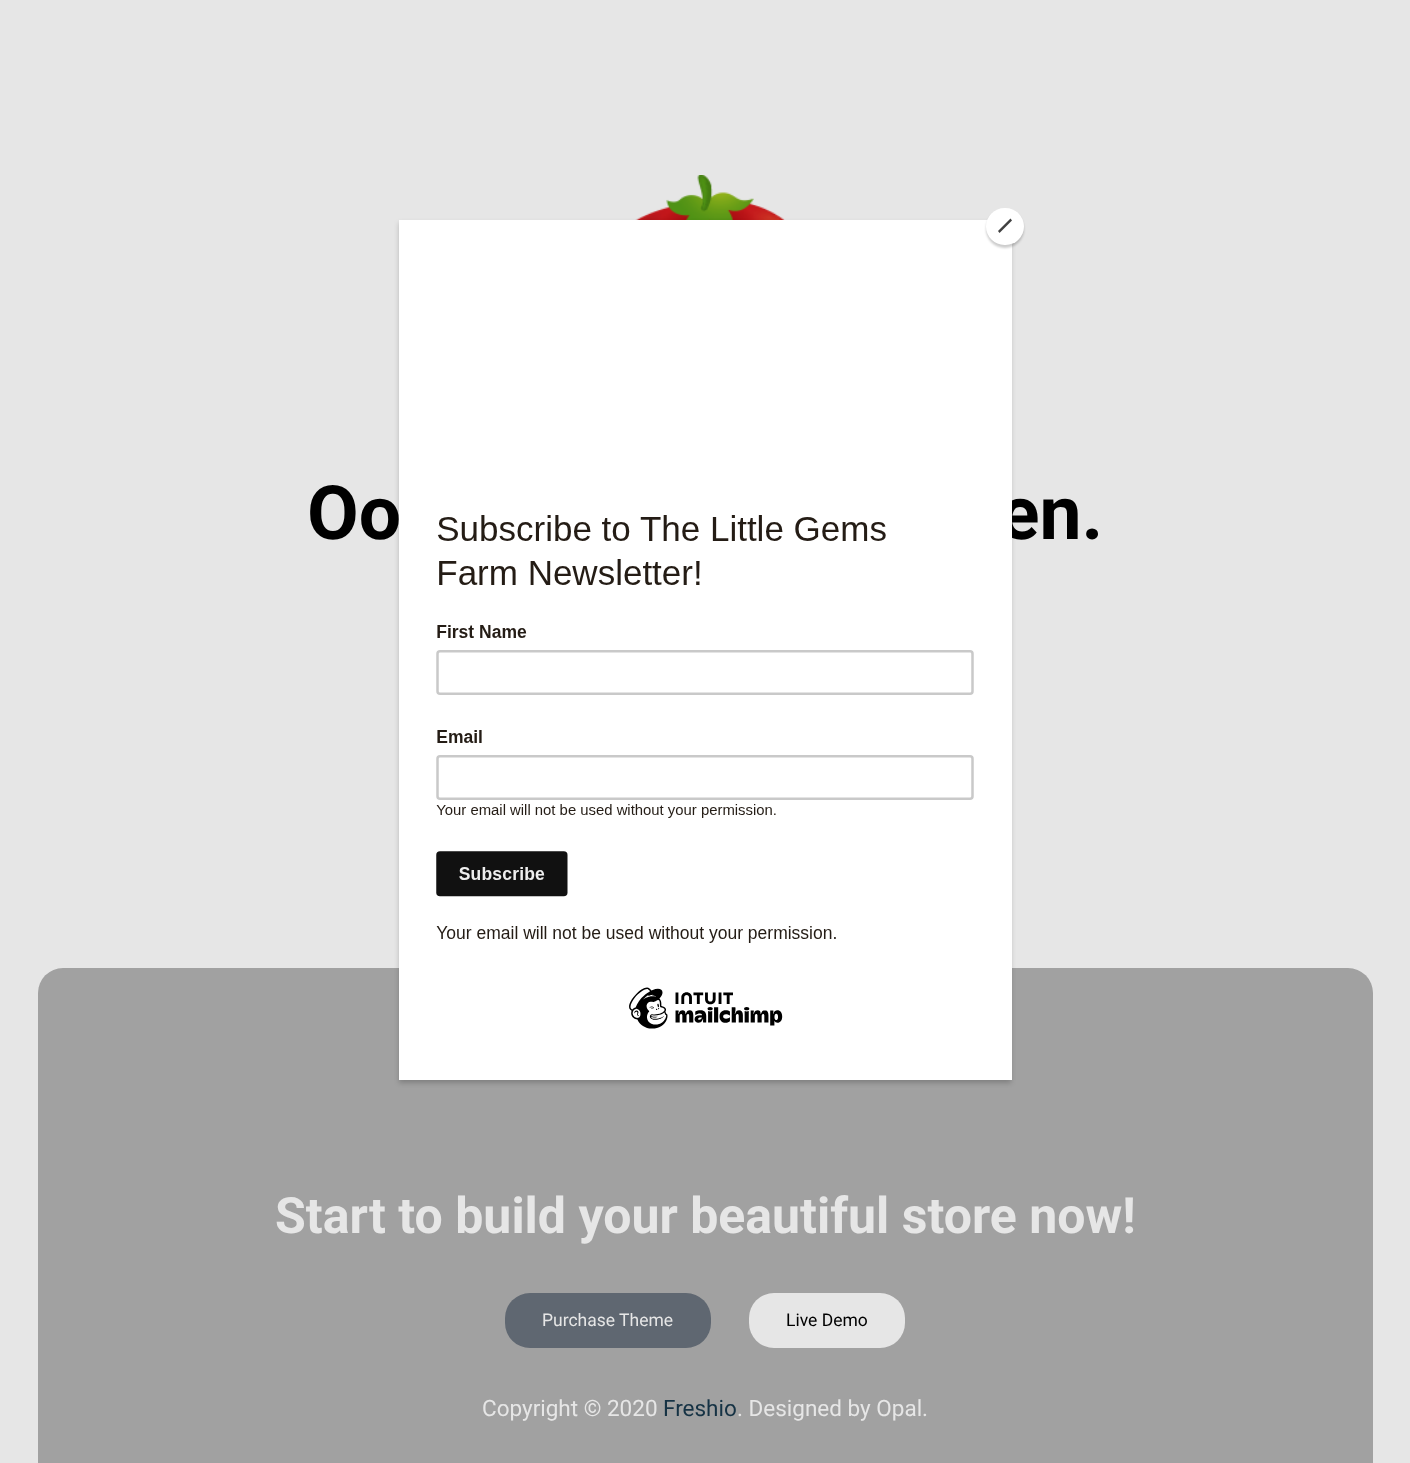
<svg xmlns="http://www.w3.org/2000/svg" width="1410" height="1463">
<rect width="100%" height="100%" fill="#e6e6e6"/>
<image x="635" y="175" width="150" height="45" href="media/2.png"/>
<rect x="38" y="968" width="1335" height="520" rx="25" fill="#a1a1a1"/>
<rect x="399" y="223" width="612" height="860" fill="#00000033" filter="blur(2.5px)"/>
<text x="999" y="539" style="font-family:Roboto;font-size:75px;font-weight:bold;fill:#000">en.</text>
<image x="399" y="220" width="613" height="860" href="media/1.png"/>
<rect x="986" y="210" width="38" height="38" rx="19" fill="#00000033" filter="blur(1px)"/>
<rect x="986" y="208" width="38" height="37" rx="18.5" fill="#fff"/>
<path d="M1010.5 218.5l1.5 2l-12.5 12.5l-1.5-2z" fill="#414141"/>
<text x="307" y="539" style="font-family:Roboto;font-size:75px;font-weight:bold;fill:#000">Oo</text>
<text x="275" y="1233" style="font-family:Roboto;font-size:50px;font-weight:bold;fill:#e6e6e6">Start to build your beautiful store now!</text>
<rect x="505" y="1293" width="206" height="55" rx="25" fill="#5f6771"/>
<text x="542" y="1326" style="font-family:Roboto;font-size:17.5px;fill:#e6e6e6">Purchase Theme</text>
<rect x="749" y="1293" width="156" height="55" rx="25" fill="#e6e6e6"/>
<text x="786" y="1326" style="font-family:Roboto;font-size:17.5px;fill:#000">Live Demo</text>
<text x="482" y="1416" style="font-family:Roboto;font-size:22.5px;fill:#e6e6e6">Copyright © 2020</text>
<text x="663" y="1416" style="font-family:Roboto;font-size:22.5px;fill:#153244">Freshio</text>
<text x="737" y="1416" style="font-family:Roboto;font-size:22.5px;fill:#e6e6e6">. Designed by Opal.</text>
</svg>
